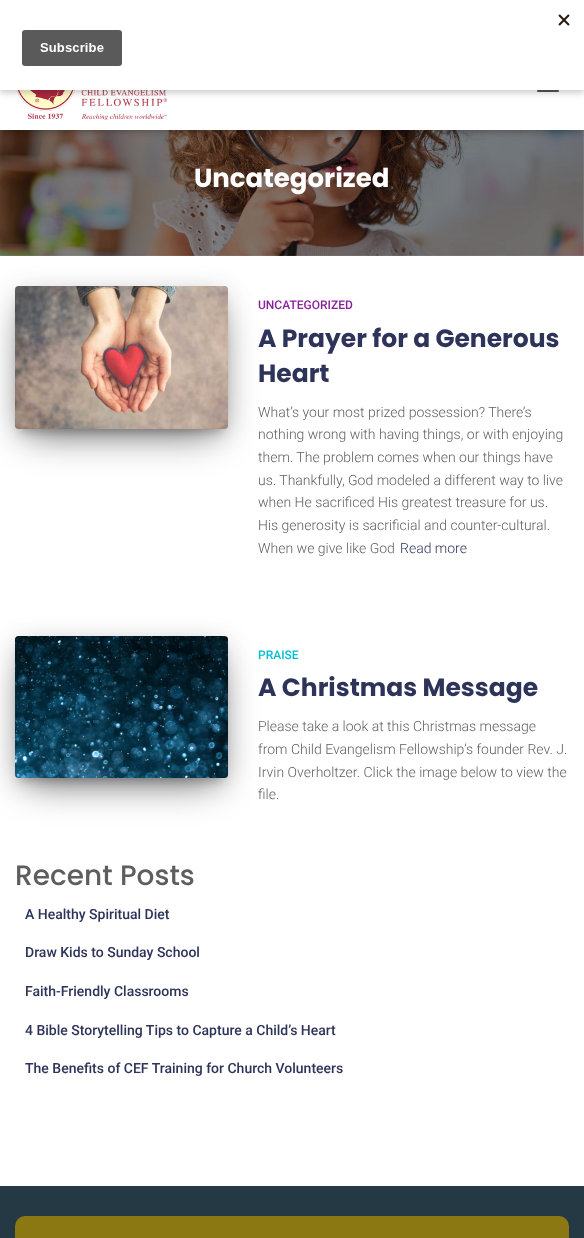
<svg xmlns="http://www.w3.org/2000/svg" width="584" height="1238">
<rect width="100%" height="100%" fill="#fff"/>
<image x="0" y="130" width="584" height="126" href="media/3.png"/>
<rect x="2" y="46" width="580" height="86" fill="#0000001a" filter="blur(2.5px)"/>
<rect y="41" width="584" height="90" fill="#0000001f" filter="blur(5px)"/>
<rect x="6" y="47" width="572" height="78" fill="#0000006b" filter="blur(5px)"/>
<rect y="90" width="584" height="40" fill="#fff"/>
<image x="16" y="90" width="151" height="30" href="media/2.png"/>
<rect x="537" y="90" width="22" height="2" rx="1" fill="#555"/>
<rect y="3" width="584" height="90" fill="#00000033" filter="blur(3px)"/>
<rect width="584" height="90" fill="#fff"/>
<image x="22" y="14" width="548" height="52" href="media/1.png"/>
<text x="194" y="187" style="font-family:Poppins;font-size:26px;font-weight:bold;fill:#fff">Uncategorized</text>
<rect x="20" y="299" width="203" height="133" fill="#00000033" filter="blur(5px)"/>
<rect x="15" y="290" width="213" height="143" rx="3" fill="#0000001f" filter="blur(12.5px)"/>
<rect x="27" y="314" width="189" height="119" fill="#0000008f" filter="blur(19px)"/>
<image x="15" y="286" width="213" height="143" href="media/4.png"/>
<text x="258" y="309" style="font-family:Roboto;font-size:12px;font-weight:500;fill:#89229b">UNCATEGORIZED</text>
<text x="258" y="347" style="font-family:Poppins;font-size:25px;font-weight:bold;fill:#2d3359">A Prayer for a Generous</text>
<text x="258" y="382" style="font-family:Poppins;font-size:25px;font-weight:bold;fill:#2d3359">Heart</text>
<text x="258" y="417" style="font-family:Roboto;font-size:14px;font-weight:300;fill:#5e5e5e">What’s your most prized possession? There’s</text>
<text x="258" y="439" style="font-family:Roboto;font-size:14px;font-weight:300;fill:#5e5e5e">nothing wrong with having things, or with enjoying</text>
<text x="258" y="462" style="font-family:Roboto;font-size:14px;font-weight:300;fill:#5e5e5e">them. The problem comes when our things have</text>
<text x="258" y="485" style="font-family:Roboto;font-size:14px;font-weight:300;fill:#5e5e5e">us. Thankfully, God modeled a different way to live</text>
<text x="258" y="507" style="font-family:Roboto;font-size:14px;font-weight:300;fill:#5e5e5e">when He sacrificed His greatest treasure for us.</text>
<text x="258" y="530" style="font-family:Roboto;font-size:14px;font-weight:300;fill:#5e5e5e">His generosity is sacrificial and counter-cultural.</text>
<text x="258" y="553" style="font-family:Roboto;font-size:14px;font-weight:300;fill:#5e5e5e">When we give like God</text>
<text x="400" y="553" style="font-family:Roboto;font-size:14px;font-weight:300;fill:#2d3359">Read more</text>
<rect x="20" y="649" width="203" height="132" fill="#00000033" filter="blur(5px)"/>
<rect x="15" y="640" width="213" height="142" rx="3" fill="#0000001f" filter="blur(12.5px)"/>
<rect x="27" y="664" width="189" height="118" fill="#0000008f" filter="blur(19px)"/>
<image x="15" y="636" width="213" height="142" href="media/5.png"/>
<text x="258" y="659" style="font-family:Roboto;font-size:12px;font-weight:500;fill:#00bcd4">PRAISE</text>
<text x="258" y="696" style="font-family:Poppins;font-size:25px;font-weight:bold;fill:#2d3359">A Christmas Message</text>
<text x="258" y="731" style="font-family:Roboto;font-size:14px;font-weight:300;fill:#5e5e5e">Please take a look at this Christmas message</text>
<text x="258" y="754" style="font-family:Roboto;font-size:14px;font-weight:300;fill:#5e5e5e">from Child Evangelism Fellowship’s founder Rev. J.</text>
<text x="258" y="777" style="font-family:Roboto;font-size:14px;font-weight:300;fill:#5e5e5e">Irvin Overholtzer. Click the image below to view the</text>
<text x="258" y="799" style="font-family:Roboto;font-size:14px;font-weight:300;fill:#5e5e5e">file.</text>
<text x="15" y="885" style="font-family:Poppins;font-size:28px;font-weight:500;fill:#5e5e5e">Recent Posts</text>
<text x="25" y="919" style="font-family:Roboto;font-size:14px;font-weight:500;fill:#2d3359">A Healthy Spiritual Diet</text>
<text x="25" y="957" style="font-family:Roboto;font-size:14px;font-weight:500;fill:#2d3359">Draw Kids to Sunday School</text>
<text x="25" y="996" style="font-family:Roboto;font-size:14px;font-weight:500;fill:#2d3359">Faith-Friendly Classrooms</text>
<text x="25" y="1035" style="font-family:Roboto;font-size:14px;font-weight:500;fill:#2d3359">4 Bible Storytelling Tips to Capture a Child’s Heart</text>
<text x="25" y="1073" style="font-family:Roboto;font-size:14px;font-weight:500;fill:#2d3359">The Benefits of CEF Training for Church Volunteers</text>
<rect y="1186" width="584" height="52" fill="#253944"/>
<rect x="15" y="1216" width="554" height="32" rx="10" fill="#8c7812"/>
</svg>
